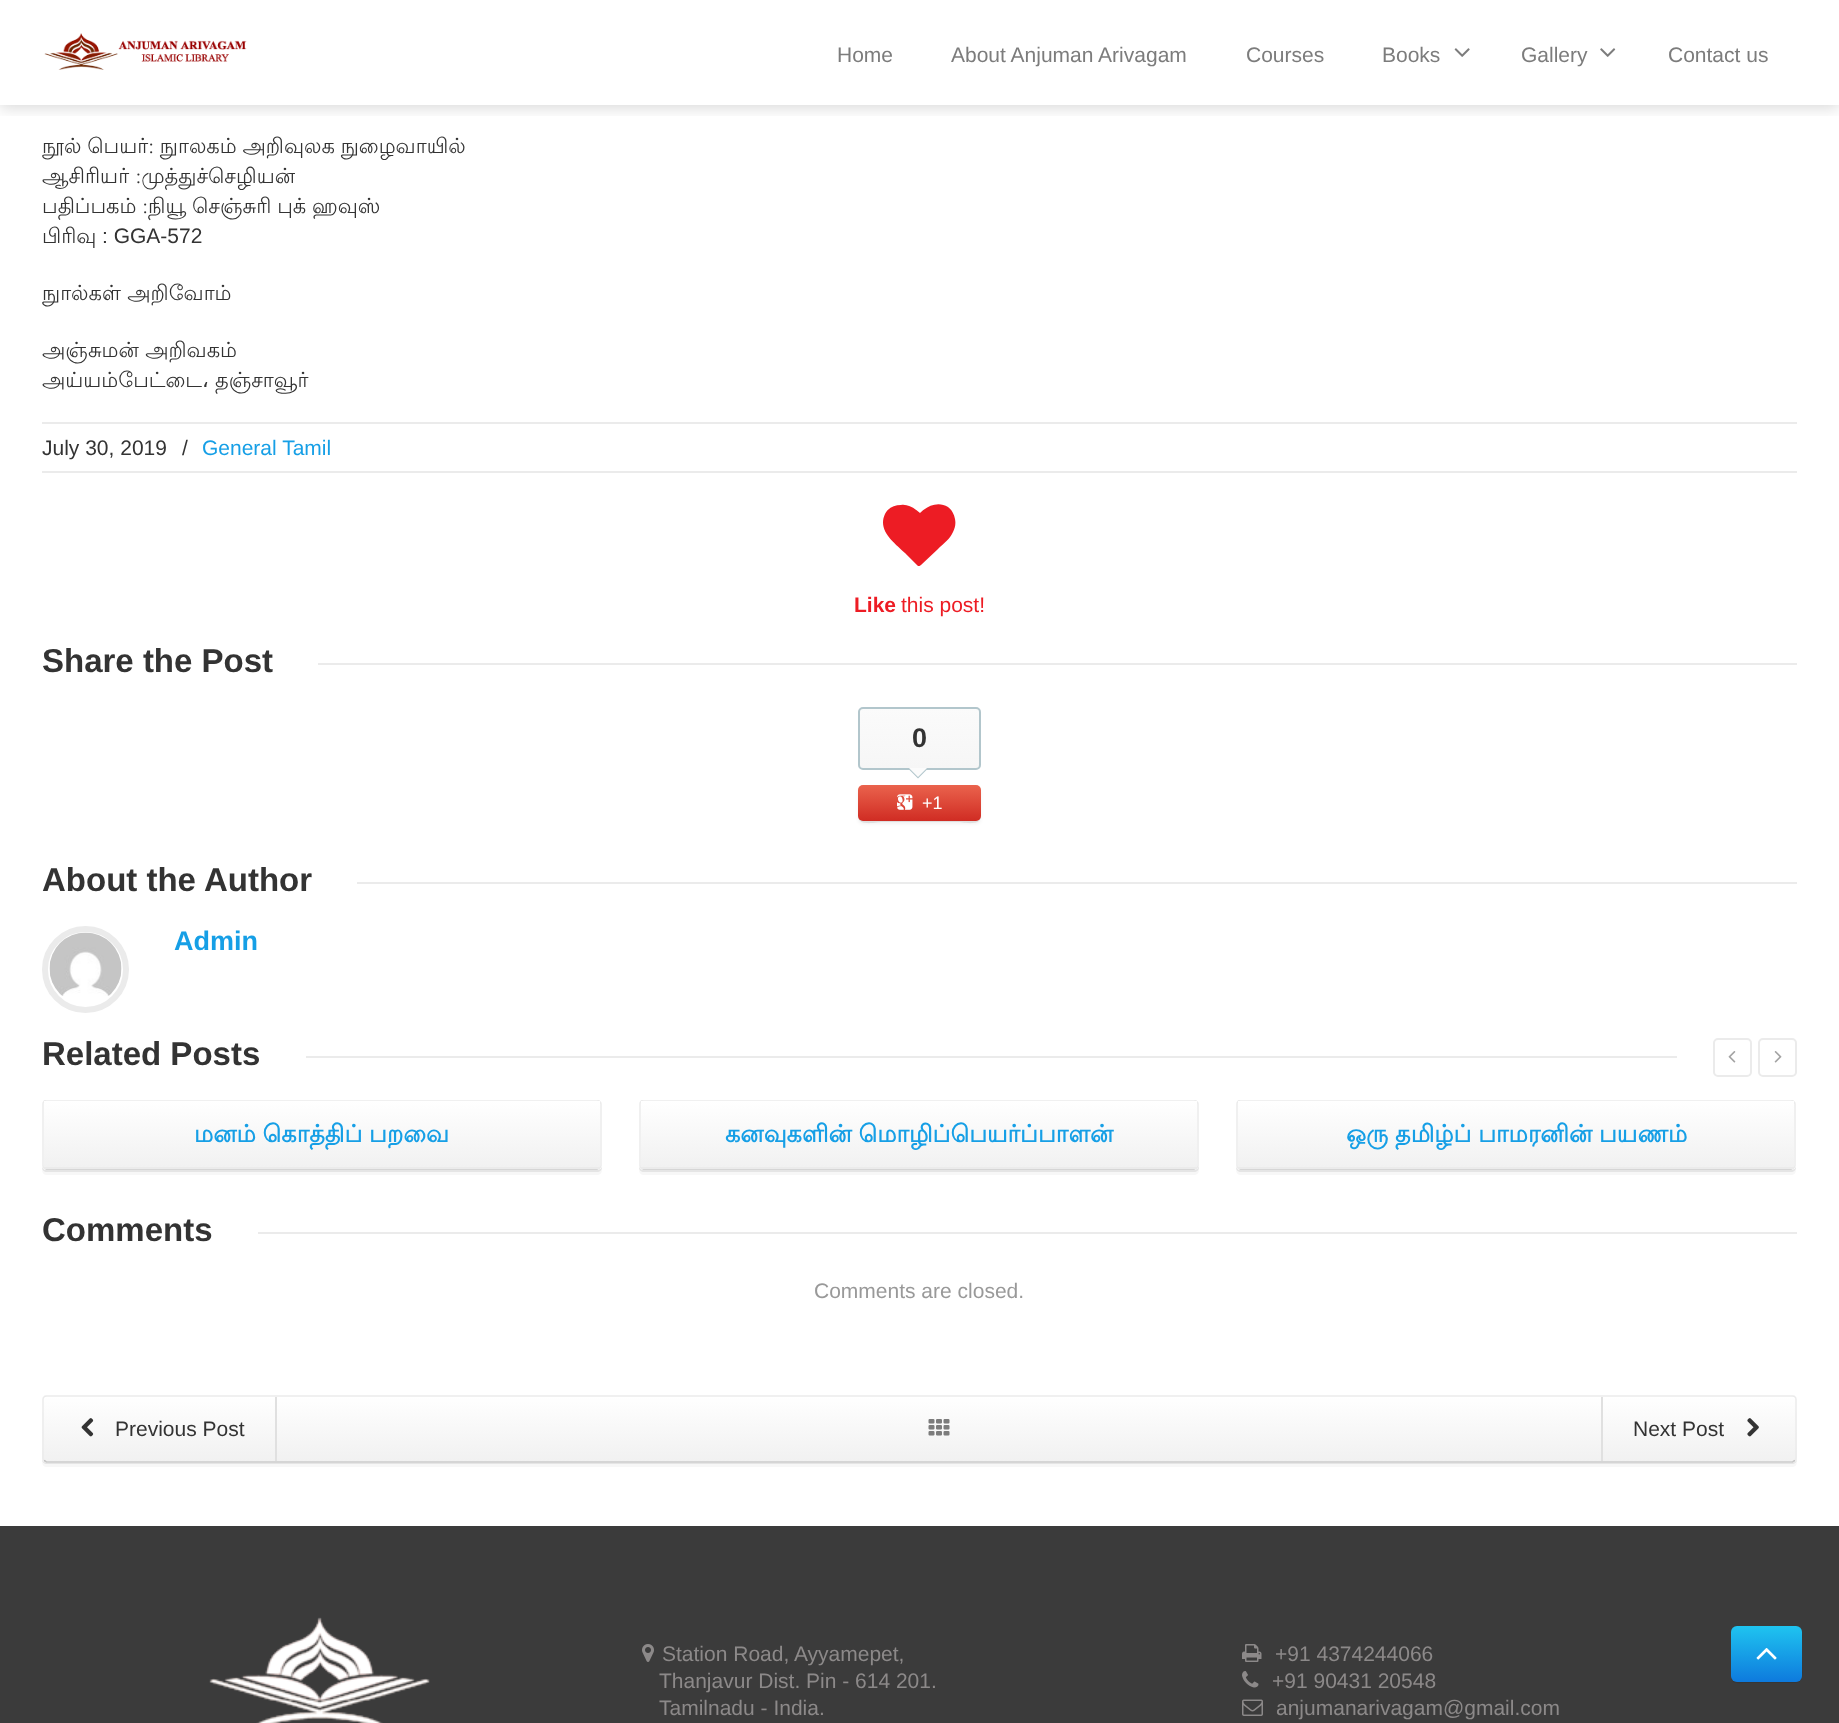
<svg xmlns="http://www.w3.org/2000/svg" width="1839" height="1723">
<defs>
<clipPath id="clip1"><rect x="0" y="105" width="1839" height="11"/></clipPath>
<clipPath id="clip2"><rect x="858" y="707" width="123" height="63" rx="5"/></clipPath>
<linearGradient id="g1" gradientUnits="userSpaceOnUse" x1="920" y1="708" x2="920" y2="768"><stop offset="0" stop-color="#fbfbfb"/><stop offset="1" stop-color="#f6f6f6"/></linearGradient>
<linearGradient id="g2" gradientUnits="userSpaceOnUse" x1="920" y1="785" x2="920" y2="821"><stop offset="0" stop-color="#ea634d"/><stop offset="1" stop-color="#d02c23"/></linearGradient>
<clipPath id="clip3"><rect y="1100" width="1839" height="97"/></clipPath>
<linearGradient id="g3" gradientUnits="userSpaceOnUse" x1="322" y1="1101" x2="322" y2="1167"><stop offset="0" stop-color="#fff"/><stop offset="1" stop-color="#f1f1f1"/></linearGradient>
<linearGradient id="g4" gradientUnits="userSpaceOnUse" x1="919" y1="1101" x2="919" y2="1167"><stop offset="0" stop-color="#fff"/><stop offset="1" stop-color="#f1f1f1"/></linearGradient>
<linearGradient id="g5" gradientUnits="userSpaceOnUse" x1="1516" y1="1101" x2="1516" y2="1167"><stop offset="0" stop-color="#fff"/><stop offset="1" stop-color="#f1f1f1"/></linearGradient>
<clipPath id="clip4"><rect x="42" y="1395" width="1755" height="68" rx="5"/></clipPath>
<linearGradient id="g6" gradientUnits="userSpaceOnUse" x1="920" y1="1396" x2="920" y2="1461"><stop offset="0" stop-color="#fff"/><stop offset="1" stop-color="#f1f1f1"/></linearGradient>
<linearGradient id="g7" gradientUnits="userSpaceOnUse" x1="1766" y1="1626" x2="1766" y2="1682"><stop offset="0" stop-color="#1fc4f0"/><stop offset="1" stop-color="#0e7add"/></linearGradient>
</defs>
<rect width="100%" height="100%" fill="#fff"/>
<g clip-path="url(#clip1)">
<rect y="3" width="1839" height="105" fill="#00000026" filter="blur(7.5px)"/>
</g>
<image x="44" y="33" width="203" height="37" href="media/1.png"/>
<text x="837" y="62" style="font-family:Liberation Sans;font-size:21px;fill:#7c7c7c">Home</text>
<text x="951" y="62" style="font-family:Liberation Sans;font-size:21px;fill:#7c7c7c">About Anjuman Arivagam</text>
<text x="1246" y="62" style="font-family:Liberation Sans;font-size:21px;fill:#7c7c7c">Courses</text>
<text x="1382" y="62" style="font-family:Liberation Sans;font-size:21px;fill:#7c7c7c">Books</text>
<image x="1454" y="48" width="16" height="9" href="media/2.png"/>
<text x="1521" y="62" style="font-family:Liberation Sans;font-size:21px;fill:#7c7c7c">Gallery</text>
<image x="1600" y="48" width="16" height="9" href="media/3.png"/>
<text x="1668" y="62" style="font-family:Liberation Sans;font-size:21px;fill:#7c7c7c">Contact us</text>
<text x="42" y="153" word-spacing="-0.5" style="font-family:Lohit Tamil;font-size:21px;fill:#333">நூல் பெயர்: நுாலகம் அறிவுலக நுழைவாயில்</text>
<text x="42" y="183" style="font-family:Lohit Tamil;font-size:21px;fill:#333">ஆசிரியர் :முத்துச்செழியன்</text>
<text x="42" y="213" word-spacing="-0.5" style="font-family:Lohit Tamil;font-size:21px;fill:#333">பதிப்பகம் :நியூ செஞ்சுரி புக் ஹவுஸ்</text>
<text x="42" y="243" style="font-family:Lohit Tamil;font-size:21px;fill:#333">பிரிவு</text>
<text x="102" y="243" style="font-family:Liberation Sans;font-size:21px;fill:#333">: GGA-572</text>
<text x="42" y="300" style="font-family:Lohit Tamil;font-size:21px;fill:#333">நுால்கள் அறிவாேம்</text>
<text x="42" y="357" style="font-family:Lohit Tamil;font-size:21px;fill:#333">அஞ்சுமன் அறிவகம்</text>
<text x="42" y="387" style="font-family:Lohit Tamil;font-size:21px;fill:#333">அய்யம்பேட்டை</text>
<text x="202" y="387" style="font-family:DejaVu Sans;font-size:21px;fill:#333">،</text>
<text x="215" y="387" style="font-family:Lohit Tamil;font-size:21px;fill:#333">தஞ்சாவூர்</text>
<rect x="42" y="422" width="1755" height="2" fill="#ebebeb"/>
<rect x="42" y="471" width="1755" height="2" fill="#ebebeb"/>
<text x="42" y="455" style="font-family:Liberation Sans;font-size:21px;fill:#333">July 30, 2019</text>
<text x="182" y="455" style="font-family:Liberation Sans;font-size:21px;fill:#333">/</text>
<text x="202" y="455" style="font-family:Liberation Sans;font-size:21px;fill:#169fe6">General Tamil</text>
<path d="M921 565c-1 1-2 1-3 1l-13-13c-10-10-28-22-20-39c3-6 9-9 16-9c7-1 13 3 19 8c7-7 18-12 28-6c4 3 6 7 7 12c1 5 0 9-2 13c-3 7-10 12-15 17z" fill="#ed1c24"/>
<text x="854" y="612" style="font-family:Liberation Sans;font-size:21px;font-weight:bold;fill:#ed1c24">Like</text>
<text x="901" y="612" style="font-family:Liberation Sans;font-size:21px;fill:#ed1c24">this post!</text>
<text x="42" y="672" style="font-family:Liberation Sans;font-size:33px;font-weight:bold;fill:#333">Share the Post</text>
<rect x="318" y="663" width="1479" height="2" fill="#ebebeb"/>
<g clip-path="url(#clip2)">
<rect x="858" y="708" width="123" height="60" fill="url(#g1)"/>
</g>
<rect x="859" y="708" width="121" height="61" rx="4" fill="none" stroke="#b2c6cc" stroke-width="2"/>
<text x="912" y="747" style="font-family:Liberation Sans;font-size:27px;font-weight:bold;fill:#333">0</text>
<path d="M907.5 768h21l-10.5 10.5z" fill="#b2c6cc"/>
<path d="M909 768h18l-9 9z" fill="#fbfbfb"/>
<path d="M858 816c0 11 19 6 24 6h75c5 0 24 5 24-6c0 2-2 4-5 4h-114c-2 0-4-2-4-4z" fill="#ebebeb"/>
<rect x="858" y="788" width="123" height="36" rx="5" fill="#0000000d" filter="blur(1.5px)"/>
<rect x="858" y="785" width="123" height="36" rx="5" fill="url(#g2)"/>
<image x="897" y="794" width="16" height="16" href="media/4.png"/>
<text x="922" y="809" style="font-family:Liberation Sans;font-size:18px;fill:#fff">+1</text>
<text x="42" y="891" style="font-family:Liberation Sans;font-size:33px;font-weight:bold;fill:#333">About the Author</text>
<rect x="357" y="882" width="1440" height="2" fill="#ebebeb"/>
<circle cx="85.5" cy="969.5" r="40.5" fill="none" stroke="#ebebeb" stroke-width="6"/>
<image x="49" y="932" width="73" height="64" href="media/5.png"/>
<text x="174" y="950" style="font-family:Liberation Sans;font-size:27px;font-weight:bold;fill:#169fe6">Admin</text>
<text x="42" y="1065" style="font-family:Liberation Sans;font-size:33px;font-weight:bold;fill:#333">Related Posts</text>
<rect x="306" y="1056" width="1371" height="2" fill="#ebebeb"/>
<rect x="1714" y="1039" width="37" height="37" rx="4" fill="none" stroke="#ebebeb" stroke-width="2"/>
<image x="1728" y="1051" width="8" height="12" href="media/6.png"/>
<rect x="1759" y="1039" width="37" height="37" rx="4" fill="none" stroke="#ebebeb" stroke-width="2"/>
<image x="1774" y="1051" width="8" height="12" href="media/7.png"/>
<path d="M42 1166v1c0 3 2 5 5 5h550c3 0 5-2 5-5v-61l-1-2l1 62c0 2-3 4-5 4h-551c-2 0-4-2-4-4z" fill="#ededed"/>
<path d="M42 1166v4c0 3 2 5 5 5h550c3 0 5-2 5-5v-61v-2v59c0 2-3 4-5 4h-551c-2 0-4-2-4-4z" fill="#00000008"/>
<rect x="42" y="1100" width="560" height="70" rx="5" fill="#fff"/>
<path d="M599.5 1168l-2.5 1h-550.5l-2.5-1" fill="none" stroke="#c7c7c7" stroke-width="1.5"/>
<g clip-path="url(#clip3)">
<path d="M44 1168c-1-.5-1-1.5-1-2.5v-61.5c0-1 0-2 1-2.5c.5-1 1.5-1.5 2.5-1.5h550.5c1 0 2 .5 2.5 1.5c1 .5 1.5 1.5 1.5 2.5v61.5c0 1-.5 2-1.5 2.5" fill="none" stroke="#ebebeb" stroke-width="1.5"/>
</g>
<rect x="44" y="1101" width="556" height="66" fill="url(#g3)"/>
<rect x="44" y="1167" width="556" height="2" fill="#ebebeb"/>
<text x="194" y="1142" word-spacing="-0.5" style="font-family:Lohit Tamil;font-size:24px;font-weight:bold;fill:#169fe6">மனம் கொத்திப் பறவை</text>
<path d="M639 1166v1c0 3 2 5 5 5h550c3 0 5-2 5-5v-61l-1-2v62c0 2-2 4-4 4h-550c-3 0-5-2-5-4z" fill="#ededed"/>
<path d="M639 1166v4c0 3 2 5 5 5h550c3 0 5-2 5-5v-61l-1-2v59c0 2-2 4-4 4h-550c-3 0-5-2-5-4z" fill="#00000008"/>
<rect x="639" y="1100" width="560" height="70" rx="5" fill="#fff"/>
<path d="M1196.5 1168l-2.5 1h-550.5l-2.5-1" fill="none" stroke="#c7c7c7" stroke-width="1.5"/>
<g clip-path="url(#clip3)">
<path d="M641 1168c-1-.5-1-1.5-1-2.5v-61.5c0-1 0-2 1-2.5c.5-1 1.5-1.5 2.5-1.5h550.5c1 0 2 .5 2.5 1.5c1 .5 1.5 1.5 1.5 2.5v61.5c0 1-.5 2-1.5 2.5" fill="none" stroke="#ebebeb" stroke-width="1.5"/>
</g>
<rect x="641" y="1101" width="556" height="66" fill="url(#g4)"/>
<rect x="641" y="1167" width="556" height="2" fill="#ebebeb"/>
<text x="725" y="1142" word-spacing="-0.5" style="font-family:Lohit Tamil;font-size:24px;font-weight:bold;fill:#169fe6">கனவுகளின் மொழிப்பெயர்ப்பாளன்</text>
<path d="M1236 1166v1c0 3 2 5 5 5h550c3 0 5-2 5-5v-61l-1-2l1 62c0 2-3 4-5 4h-551c-2 0-4-2-4-4z" fill="#ededed"/>
<path d="M1236 1166v4c0 3 2 5 5 5h550c3 0 5-2 5-5v-61v-2v59c0 2-3 4-5 4h-551c-2 0-4-2-4-4z" fill="#00000008"/>
<rect x="1236" y="1100" width="560" height="70" rx="5" fill="#fff"/>
<path d="M1793.5 1168l-2.5 1h-550.5l-2.5-1" fill="none" stroke="#c7c7c7" stroke-width="1.5"/>
<g clip-path="url(#clip3)">
<path d="M1238 1168c-1-.5-1-1.5-1-2.5v-61.5c0-1 0-2 1-2.5c.5-1 1.5-1.5 2.5-1.5h550.5c1 0 2 .5 2.5 1.5c1 .5 1.5 1.5 1.5 2.5v61.5c0 1-.5 2-1.5 2.5" fill="none" stroke="#ebebeb" stroke-width="1.5"/>
</g>
<rect x="1238" y="1101" width="556" height="66" fill="url(#g5)"/>
<rect x="1238" y="1167" width="556" height="2" fill="#ebebeb"/>
<text x="1346" y="1142" word-spacing="-0.5" style="font-family:Lohit Tamil;font-size:24px;font-weight:bold;fill:#169fe6">ஒரு தமிழ்ப் பாமரனின் பயணம்</text>
<text x="42" y="1241" style="font-family:Liberation Sans;font-size:33px;font-weight:bold;fill:#333">Comments</text>
<rect x="258" y="1232" width="1539" height="2" fill="#ebebeb"/>
<text x="814" y="1298" style="font-family:Liberation Sans;font-size:21px;fill:#999">Comments are closed.</text>
<path d="M42 1458v1c0 3 2 5 5 5h1745c3 0 5-2 5-5v-1c0 2-2 4-5 4h-1746c-2 0-4-2-4-4z" fill="#ededed"/>
<path d="M42 1458v4c0 3 2 5 5 5h1745c3 0 5-2 5-5v-4c0 2-2 4-5 4h-1746c-2 0-4-2-4-4z" fill="#00000008"/>
<rect x="42" y="1395" width="1755" height="68" rx="5" fill="#fff"/>
<g clip-path="url(#clip4)">
<rect x="42" y="1397" width="1755" height="64" fill="url(#g6)"/>
</g>
<path d="M1795 1460.5l-2.5 1.5h-1746l-2.5-1.5" fill="none" stroke="#00000038" stroke-width="1.5"/>
<path d="M44 1460.5c-1-.5-1-1.5-1-2.5v-58.5c0-1 0-2 1-2.5c.5-1 1.5-1 2.5-1h1746c1 0 2 0 2.5 1c1 .5 1 1.5 1 2.5v58.5c0 1 0 2-1 2.5" fill="none" stroke="#ebebeb" stroke-width="1.5"/>
<rect x="275" y="1397" width="2" height="64" fill="#e0e0e0"/>
<image x="81" y="1418" width="13" height="19" href="media/8.png"/>
<text x="115" y="1436" style="font-family:Liberation Sans;font-size:21px;fill:#333">Previous Post</text>
<image x="928" y="1419" width="22" height="17" href="media/9.png"/>
<rect x="1601" y="1397" width="2" height="64" fill="#e0e0e0"/>
<text x="1633" y="1436" style="font-family:Liberation Sans;font-size:21px;fill:#333">Next Post</text>
<image x="1747" y="1418" width="12" height="19" href="media/10.png"/>
<rect y="1526" width="1839" height="197" fill="#3b3b3b"/>
<image x="209" y="1617" width="221" height="106" href="media/11.png"/>
<image x="642" y="1644" width="12" height="18" href="media/12.png"/>
<text x="662" y="1661" style="font-family:Liberation Sans;font-size:21px;fill:#8c8989">Station Road, Ayyamepet,</text>
<text x="659" y="1688" style="font-family:Liberation Sans;font-size:21px;fill:#8c8989">Thanjavur Dist. Pin - 614 201.</text>
<text x="659" y="1715" style="font-family:Liberation Sans;font-size:21px;fill:#8c8989">Tamilnadu - India.</text>
<image x="1242" y="1644" width="20" height="18" href="media/13.png"/>
<text x="1275" y="1661" style="font-family:Liberation Sans;font-size:21px;fill:#8c8989">+91 4374244066</text>
<image x="1242" y="1671" width="17" height="17" href="media/14.png"/>
<text x="1272" y="1688" style="font-family:Liberation Sans;font-size:21px;fill:#8c8989">+91 90431 20548</text>
<image x="1242" y="1699" width="21" height="17" href="media/15.png"/>
<text x="1276" y="1715" style="font-family:Liberation Sans;font-size:21px;fill:#8c8989">anjumanarivagam@gmail.com</text>
<path d="M1731 1676c0 9 8 7 16 7h29c31 0 26 3 26-27v-15c0-2 1-7-1-9l1 36c0 15-1 14-16 14h-39c-4 0-13 1-16-4z" fill="#363636"/>
<rect x="1731" y="1626" width="71" height="56" rx="6" fill="url(#g7)"/>
<image x="1756" y="1648" width="21" height="12" href="media/16.png"/>
</svg>
